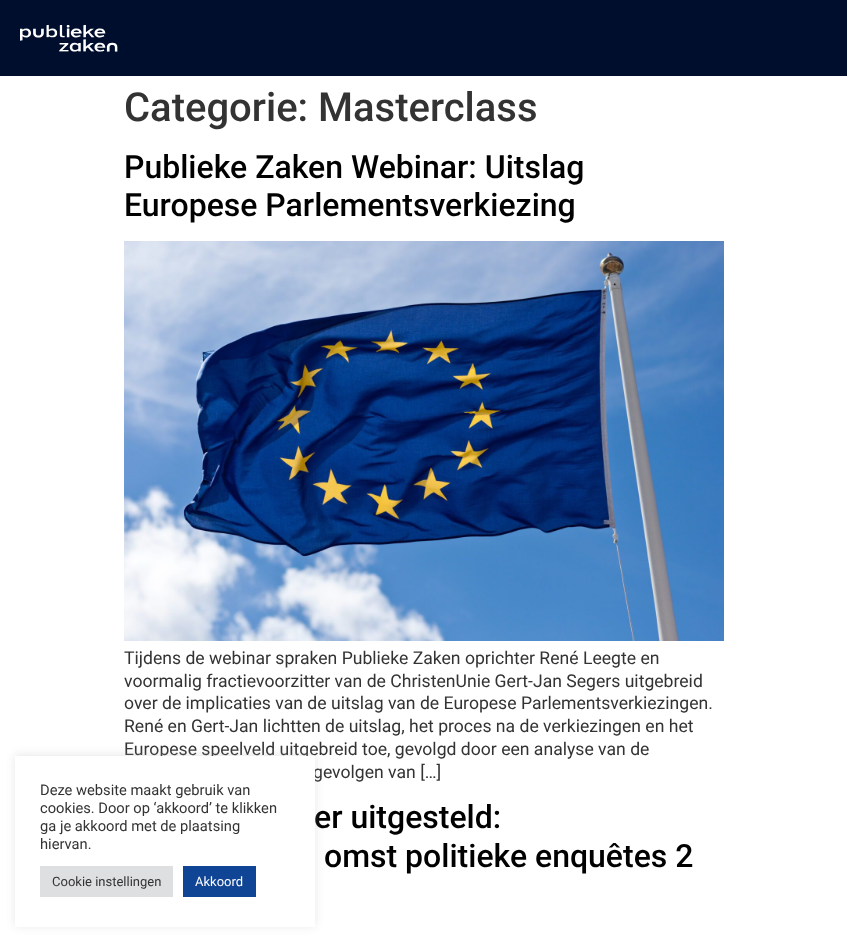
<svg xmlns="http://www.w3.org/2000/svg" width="847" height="942">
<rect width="100%" height="100%" fill="#fff"/>
<rect width="847" height="76" fill="#000e2d"/>
<image x="20" y="24" width="98" height="28" href="media/1.png"/>
<text x="124" y="121" style="font-family:Roboto;font-size:40px;font-weight:500;fill:#333">Categorie: Masterclass</text>
<text x="124" y="178" style="font-family:Roboto;font-size:32px;font-weight:500;fill:#000">Publieke Zaken Webinar: Uitslag</text>
<text x="124" y="216" style="font-family:Roboto;font-size:32px;font-weight:500;fill:#000">Europese Parlementsverkiezing</text>
<image x="124" y="241" width="600" height="400" href="media/2.png"/>
<text x="124" y="664" style="font-family:Roboto;font-size:17.6px;fill:#333">Tijdens de webinar spraken Publieke Zaken oprichter René Leegte en</text>
<text x="124" y="687" style="font-family:Roboto;font-size:17.6px;fill:#333">voormalig fractievoorzitter van de ChristenUnie Gert-Jan Segers uitgebreid</text>
<text x="124" y="709" style="font-family:Roboto;font-size:17.6px;fill:#333">over de implicaties van de uitslag van de Europese Parlementsverkiezingen.</text>
<text x="124" y="732" style="font-family:Roboto;font-size:17.6px;fill:#333">René en Gert-Jan lichtten de uitslag, het proces na de verkiezingen en het</text>
<text x="124" y="755" style="font-family:Roboto;font-size:17.6px;fill:#333">Europese speelveld uitgebreid toe, gevolgd door een analyse van de</text>
<text x="313" y="778" style="font-family:Roboto;font-size:17.6px;fill:#333">gevolgen van […]</text>
<text x="314" y="828" style="font-family:Roboto;font-size:32px;font-weight:500;fill:#000">er uitgesteld:</text>
<text x="324" y="867" style="font-family:Roboto;font-size:32px;font-weight:500;fill:#000">omst politieke enquêtes 2</text>
<rect x="15" y="755" width="300" height="171" fill="#acabab4d" filter="blur(5px)"/>
<rect x="15" y="756" width="300" height="171" fill="#fff"/>
<text x="40" y="795" style="font-family:Roboto;font-size:14.7px;fill:#333">Deze website maakt gebruik van</text>
<text x="40" y="813" style="font-family:Roboto;font-size:14.7px;fill:#333">cookies. Door op ‘akkoord’ te klikken</text>
<text x="40" y="831" style="font-family:Roboto;font-size:14.7px;fill:#333">ga je akkoord met de plaatsing</text>
<text x="40" y="849" style="font-family:Roboto;font-size:14.7px;fill:#333">hiervan.</text>
<rect x="40" y="866" width="133" height="31" fill="#dedfe0"/>
<text x="52" y="886" style="font-family:Roboto;font-size:13px;fill:#333">Cookie instellingen</text>
<rect x="183" y="866" width="73" height="31" fill="#104494"/>
<text x="195" y="886" style="font-family:Roboto;font-size:13px;fill:#fff">Akkoord</text>
</svg>
